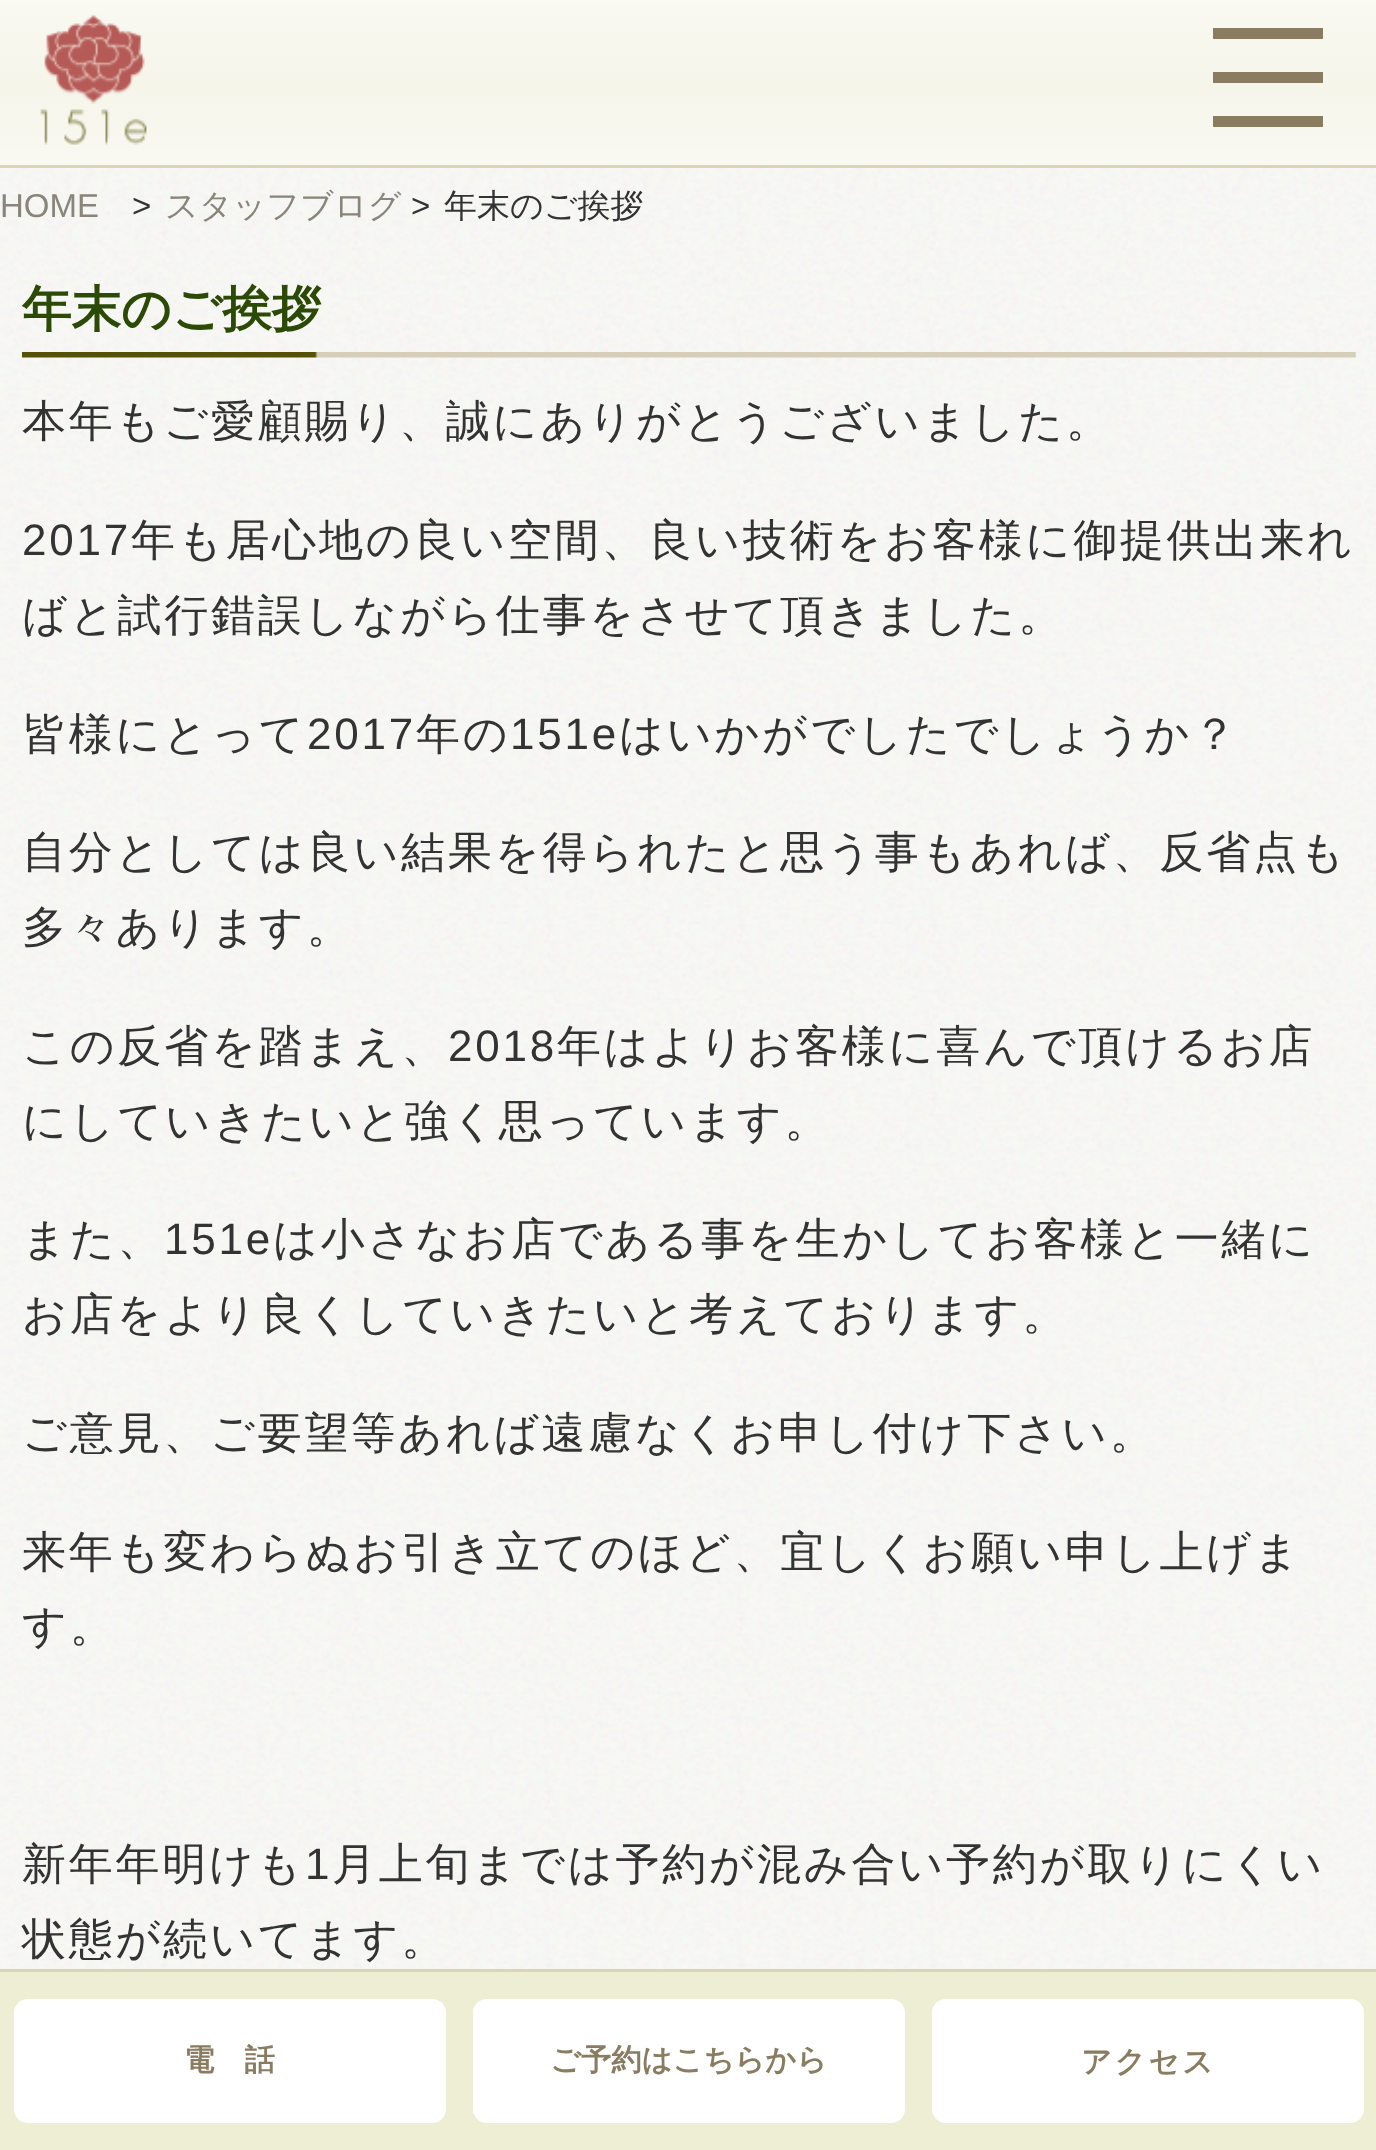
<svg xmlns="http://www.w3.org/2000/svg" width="1376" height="2150">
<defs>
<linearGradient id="g1" gradientUnits="userSpaceOnUse" x1="689" y1="0" x2="689" y2="165"><stop offset="0" stop-color="#faf9f2"/><stop offset="0.5" stop-color="#f6f5ea"/><stop offset="1" stop-color="#faf9f2"/></linearGradient>
</defs>
<rect width="100%" height="100%" fill="#fff"/>
<image x="0" y="168" width="1376" height="1801" href="media/1.png"/>
<rect width="1376" height="165" fill="url(#g1)"/>
<rect y="165" width="1376" height="3" fill="#dbd4b5"/>
<image x="40" y="15" width="107" height="130" href="media/2.png"/>
<rect x="1213" y="28" width="110" height="11" fill="#897c60"/>
<rect x="1213" y="72" width="110" height="11" fill="#897c60"/>
<rect x="1213" y="116" width="110" height="11" fill="#897c60"/>
<text x="0" y="217" style="font-family:Liberation Sans;font-size:33px;fill:#89857a">HOME</text>
<text x="132" y="217" style="font-family:Liberation Sans;font-size:33px;fill:#333">&gt;</text>
<text x="165" y="217" style="font-family:WenQuanYi Zen Hei;font-size:33px;font-weight:500;fill:#89857a">スタッフブログ</text>
<text x="411" y="217" style="font-family:Liberation Sans;font-size:33px;fill:#333">&gt;</text>
<text x="444" y="217" style="font-family:WenQuanYi Zen Hei;font-size:33px;font-weight:500;fill:#333">年末のご挨拶</text>
<image x="22" y="352" width="1334" height="6" href="media/3.png"/>
<text x="22" y="326" style="font-family:WenQuanYi Zen Hei;font-size:49.5px;font-weight:bold;fill:#2b4a06">年末のご挨拶</text>
<text x="22" y="436" style="font-family:WenQuanYi Zen Hei;font-size:44px;font-weight:500;letter-spacing:2.75px;fill:#333">本年もご愛顧賜り、誠にありがとうございました。</text>
<text x="22" y="555" style="font-family:Liberation Sans;font-size:44px;letter-spacing:2.75px;fill:#333">2017</text>
<text x="131" y="555" style="font-family:WenQuanYi Zen Hei;font-size:44px;font-weight:500;letter-spacing:2.75px;fill:#333">年も居心地の良い空間、良い技術をお客様に御提供出来れ</text>
<text x="22" y="630" style="font-family:WenQuanYi Zen Hei;font-size:44px;font-weight:500;letter-spacing:2.75px;fill:#333">ばと試行錯誤しながら仕事をさせて頂きました。</text>
<text x="22" y="749" style="font-family:WenQuanYi Zen Hei;font-size:44px;font-weight:500;letter-spacing:2.75px;fill:#333">皆様にとって</text>
<text x="307" y="749" style="font-family:Liberation Sans;font-size:44px;letter-spacing:2.75px;fill:#333">2017</text>
<text x="416" y="749" style="font-family:WenQuanYi Zen Hei;font-size:44px;font-weight:500;letter-spacing:2.75px;fill:#333">年の</text>
<text x="510" y="749" style="font-family:Liberation Sans;font-size:44px;letter-spacing:2.75px;fill:#333">151e</text>
<text x="619" y="749" style="font-family:WenQuanYi Zen Hei;font-size:44px;font-weight:500;letter-spacing:2.75px;fill:#333">はいかがでしたでしょうか？</text>
<text x="22" y="867" style="font-family:WenQuanYi Zen Hei;font-size:44px;font-weight:500;letter-spacing:2.75px;fill:#333">自分としては良い結果を得られたと思う事もあれば、反省点も</text>
<text x="22" y="942" style="font-family:WenQuanYi Zen Hei;font-size:44px;font-weight:500;letter-spacing:2.75px;fill:#333">多々あります。</text>
<text x="22" y="1061" style="font-family:WenQuanYi Zen Hei;font-size:44px;font-weight:500;letter-spacing:2.75px;fill:#333">この反省を踏まえ、</text>
<text x="448" y="1061" style="font-family:Liberation Sans;font-size:44px;letter-spacing:2.75px;fill:#333">2018</text>
<text x="557" y="1061" style="font-family:WenQuanYi Zen Hei;font-size:44px;font-weight:500;letter-spacing:2.75px;fill:#333">年はよりお客様に喜んで頂けるお店</text>
<text x="22" y="1136" style="font-family:WenQuanYi Zen Hei;font-size:44px;font-weight:500;letter-spacing:2.75px;fill:#333">にしていきたいと強く思っています。</text>
<text x="22" y="1254" style="font-family:WenQuanYi Zen Hei;font-size:44px;font-weight:500;letter-spacing:2.75px;fill:#333">また、</text>
<text x="164" y="1254" style="font-family:Liberation Sans;font-size:44px;letter-spacing:2.75px;fill:#333">151e</text>
<text x="273" y="1254" style="font-family:WenQuanYi Zen Hei;font-size:44px;font-weight:500;letter-spacing:2.75px;fill:#333">は小さなお店である事を生かしてお客様と一緒に</text>
<text x="22" y="1329" style="font-family:WenQuanYi Zen Hei;font-size:44px;font-weight:500;letter-spacing:2.75px;fill:#333">お店をより良くしていきたいと考えております。</text>
<text x="22" y="1448" style="font-family:WenQuanYi Zen Hei;font-size:44px;font-weight:500;letter-spacing:2.75px;fill:#333">ご意見、ご要望等あれば遠慮なくお申し付け下さい。</text>
<text x="22" y="1567" style="font-family:WenQuanYi Zen Hei;font-size:44px;font-weight:500;letter-spacing:2.75px;fill:#333">来年も変わらぬお引き立てのほど、宜しくお願い申し上げま</text>
<text x="22" y="1641" style="font-family:WenQuanYi Zen Hei;font-size:44px;font-weight:500;letter-spacing:2.75px;fill:#333">す。</text>
<text x="22" y="1879" style="font-family:WenQuanYi Zen Hei;font-size:44px;font-weight:500;letter-spacing:2.75px;fill:#333">新年年明けも</text>
<text x="305" y="1879" style="font-family:Liberation Sans;font-size:44px;letter-spacing:2.75px;fill:#333">1</text>
<text x="332" y="1879" style="font-family:WenQuanYi Zen Hei;font-size:44px;font-weight:500;letter-spacing:2.75px;fill:#333">月上旬までは予約が混み合い予約が取りにくい</text>
<text x="22" y="1954" style="font-family:WenQuanYi Zen Hei;font-size:44px;font-weight:500;letter-spacing:2.75px;fill:#333">状態が続いてます。</text>
<rect y="1972" width="1376" height="178" fill="#eeeed5"/>
<rect y="1969" width="1376" height="3" fill="#dbd4b5"/>
<rect x="14" y="1999" width="432" height="124" rx="14" fill="#fff"/>
<text x="184" y="2070" style="font-family:WenQuanYi Zen Hei;font-size:30.25px;font-weight:bold;fill:#897c60">電　話</text>
<rect x="473" y="1999" width="432" height="124" rx="14" fill="#fff"/>
<text x="550" y="2070" style="font-family:WenQuanYi Zen Hei;font-size:30.25px;font-weight:bold;fill:#897c60">ご予約はこちらから</text>
<rect x="932" y="1999" width="432" height="124" rx="14" fill="#fff"/>
<text x="1081" y="2072" style="font-family:WenQuanYi Zen Hei;font-size:30.25px;font-weight:bold;letter-spacing:2.75px;fill:#897c60">アクセス</text>
</svg>
